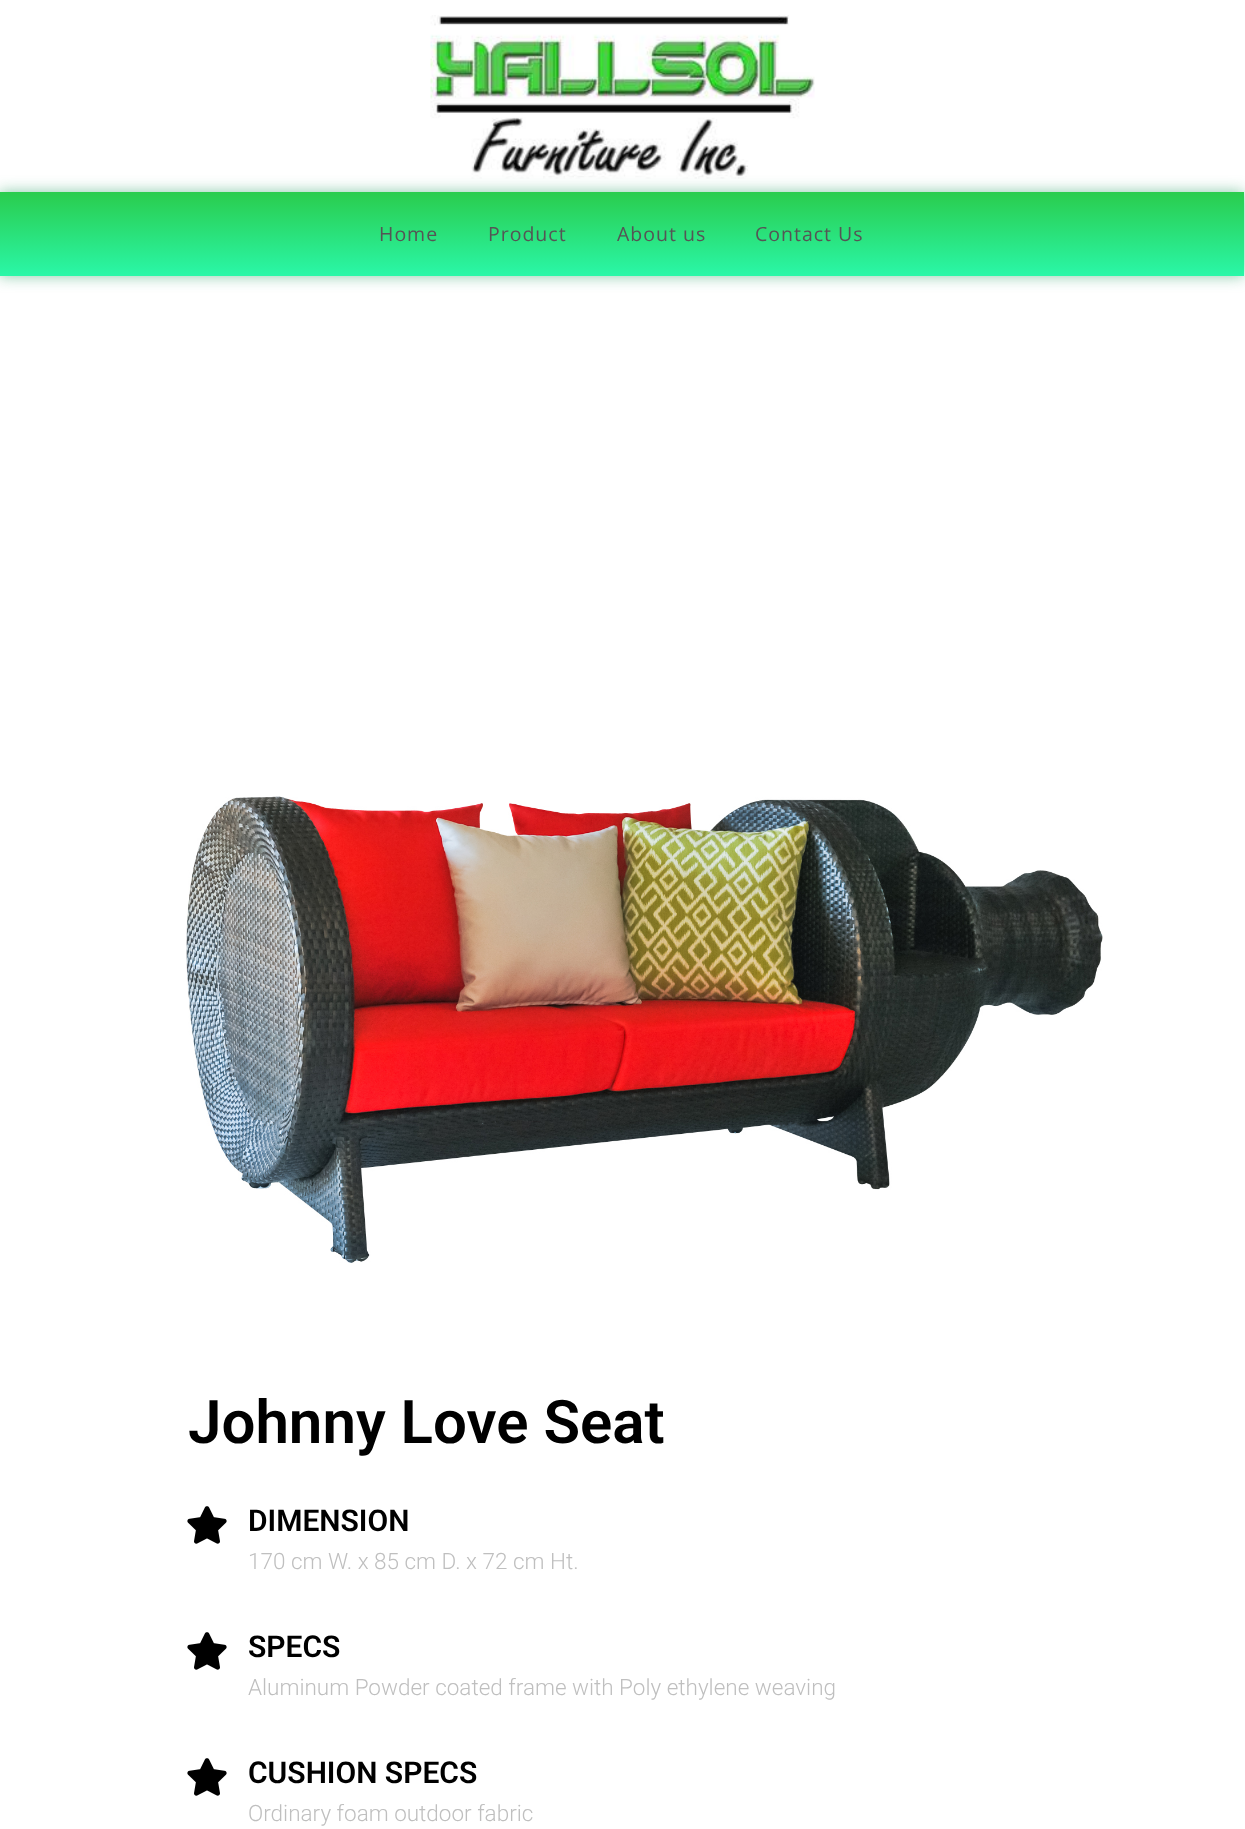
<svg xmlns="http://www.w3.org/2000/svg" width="1245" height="1829">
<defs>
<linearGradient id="g1" gradientUnits="userSpaceOnUse" x1="621" y1="192" x2="621" y2="276"><stop offset="0" stop-color="#2acc4d"/><stop offset="1" stop-color="#2af7a8"/></linearGradient>
</defs>
<rect width="100%" height="100%" fill="#fff"/>
<image x="430" y="15" width="385" height="164" href="media/1.png"/>
<rect x="-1" y="192" width="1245" height="84" fill="#0b915080" filter="blur(7.5px)"/>
<rect y="192" width="1244" height="84" fill="url(#g1)"/>
<text x="379" y="241" style="font-family:Open Sans;font-size:19.5px;letter-spacing:1px;fill:#555">Home</text>
<text x="488" y="241" style="font-family:Open Sans;font-size:19.5px;letter-spacing:1px;fill:#555">Product</text>
<text x="617" y="241" style="font-family:Open Sans;font-size:19.5px;letter-spacing:1px;fill:#555">About us</text>
<text x="755" y="241" style="font-family:Open Sans;font-size:19.5px;letter-spacing:1px;fill:#555">Contact Us</text>
<image x="186" y="796" width="917" height="467" href="media/2.png"/>
<text x="188" y="1443" style="font-family:Roboto;font-size:60px;font-weight:600;fill:#000">Johnny Love Seat</text>
<image x="187" y="1506" width="40" height="38" href="media/3.png"/>
<text x="248" y="1531" style="font-family:Roboto;font-size:30px;font-weight:600;fill:#000">DIMENSION</text>
<text x="248" y="1569" style="font-family:Roboto;font-size:22.5px;font-weight:300;fill:#bfbfbf">170 cm W. x 85 cm D. x 72 cm Ht.</text>
<image x="187" y="1632" width="40" height="38" href="media/3.png"/>
<text x="248" y="1657" style="font-family:Roboto;font-size:30px;font-weight:600;fill:#000">SPECS</text>
<text x="248" y="1695" style="font-family:Roboto;font-size:22.5px;font-weight:300;fill:#bfbfbf">Aluminum Powder coated frame with Poly ethylene weaving</text>
<image x="187" y="1758" width="40" height="38" href="media/3.png"/>
<text x="248" y="1783" style="font-family:Roboto;font-size:30px;font-weight:600;fill:#000">CUSHION SPECS</text>
<text x="248" y="1821" style="font-family:Roboto;font-size:22.5px;font-weight:300;fill:#bfbfbf">Ordinary foam outdoor fabric</text>
</svg>
